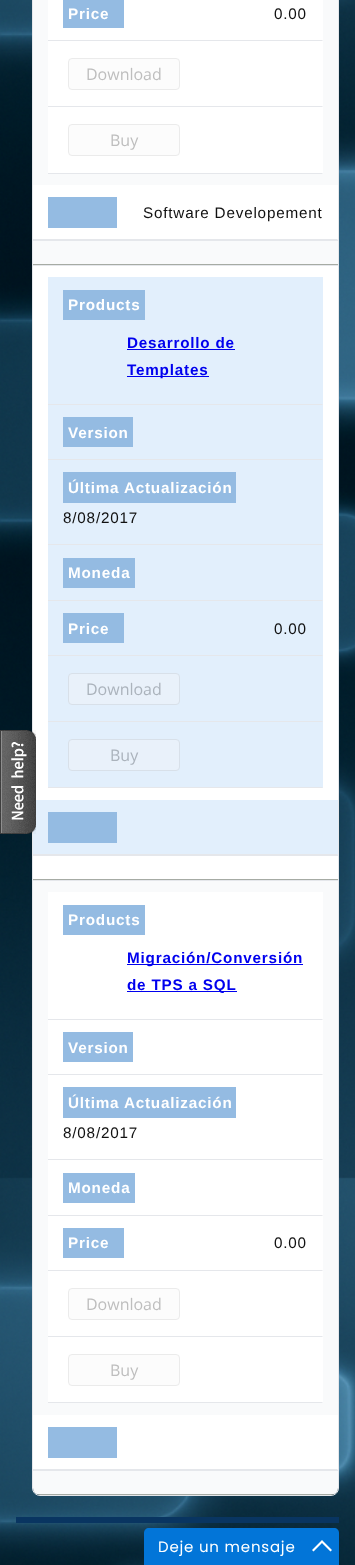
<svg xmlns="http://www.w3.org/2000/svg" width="355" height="1565">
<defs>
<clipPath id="clip1"><rect x="33" y="-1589" width="305" height="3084" rx="7"/></clipPath>
</defs>
<rect width="100%" height="100%" fill="#fff"/>
<image x="0" y="0" width="355" height="1565" href="media/1.png"/>
<rect x="32.5" y="-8.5" width="306" height="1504" rx="7.5" fill="none" stroke="#e5e7eb"/>
<rect x="33" y="266" width="305" height="534" fill="#fff"/>
<rect x="33" y="800" width="305" height="55" fill="#e2effc"/>
<image x="0" y="730" width="36" height="104" href="media/2.png"/>
<rect x="33" width="305" height="185" fill="#f9fafb"/>
<rect x="48" width="275" height="174" fill="#fff"/>
<path d="M323 41h-275v-1h274z" fill="#e5e7eb"/>
<rect x="63" width="61" height="28" fill="#94bbe2"/>
<text x="68" y="19" style="font-family:Liberation Sans;font-size:15.25px;font-weight:bold;letter-spacing:0.8px;fill:#fff">Price</text>
<text x="274" y="19" style="font-family:Liberation Sans;font-size:15.25px;letter-spacing:0.8px;fill:#111">0.00</text>
<path d="M323 107h-275v-1h274z" fill="#e5e7eb"/>
<rect x="68.5" y="58.5" width="111" height="31" rx="3.5" fill="#fcfcfc" stroke="#ebebeb"/>
<text x="86" y="80" style="font-family:Open Sans;font-size:16px;fill:#bebebe">Download</text>
<path d="M323 174h-275v-1h274z" fill="#e5e7eb"/>
<rect x="68.5" y="124.5" width="111" height="31" rx="3.5" fill="#fcfcfc" stroke="#ebebeb"/>
<text x="110" y="146" style="font-family:Open Sans;font-size:16px;fill:#bebebe">Buy</text>
<rect x="33" y="185" width="305" height="55" fill="#fff"/>
<path d="M338 240h-305v-1h304z" fill="#e5e7eb"/>
<rect x="48" y="197" width="69" height="31" fill="#94bbe2"/>
<text x="143" y="218" style="font-family:Liberation Sans;font-size:15.25px;letter-spacing:0.8px;fill:#111">Software Developement</text>
<rect x="33" y="241" width="305" height="23" fill="#f9fafb"/>
<rect x="33" y="240" width="305" height="1" fill="#e5e7eb"/>
<rect x="33" y="264" width="305" height="1" fill="#a6aba4"/>
<rect x="33" y="265" width="305" height="1" fill="#e5e7eb"/>
<rect x="48" y="277" width="275" height="511" fill="#e2effc"/>
<path d="M323 405h-275v-1h274z" fill="#e5e7eb"/>
<rect x="63" y="290" width="82" height="30" fill="#94bbe2"/>
<text x="68" y="310" style="font-family:Liberation Sans;font-size:15.25px;font-weight:bold;letter-spacing:0.8px;fill:#fff">Products</text>
<text x="127" y="348" style="font-family:Liberation Sans;font-size:15.25px;font-weight:bold;letter-spacing:0.8px;fill:#00e">Desarrollo de</text>
<rect x="127" y="349" width="108" height="1" fill="#00e"/>
<rect x="127" y="376" width="82" height="1" fill="#00e"/>
<text x="127" y="375" style="font-family:Liberation Sans;font-size:15.25px;font-weight:bold;letter-spacing:0.8px;fill:#00e">Templates</text>
<path d="M323 460h-275v-1h274z" fill="#e5e7eb"/>
<rect x="63" y="417" width="70" height="30" fill="#94bbe2"/>
<text x="68" y="438" style="font-family:Liberation Sans;font-size:15.25px;font-weight:bold;letter-spacing:0.8px;fill:#fff">Version</text>
<path d="M323 545h-275v-1h274z" fill="#e5e7eb"/>
<rect x="63" y="472" width="173" height="31" fill="#94bbe2"/>
<text x="68" y="493" style="font-family:Liberation Sans;font-size:15.25px;font-weight:bold;letter-spacing:0.8px;fill:#fff">Última Actualización</text>
<text x="63" y="523" style="font-family:Liberation Sans;font-size:15.25px;letter-spacing:0.8px;fill:#111">8/08/2017</text>
<path d="M323 601h-275v-1h274z" fill="#e5e7eb"/>
<rect x="63" y="558" width="72" height="30" fill="#94bbe2"/>
<text x="68" y="578" style="font-family:Liberation Sans;font-size:15.25px;font-weight:bold;letter-spacing:0.8px;fill:#fff">Moneda</text>
<path d="M323 656h-275v-1h274z" fill="#e5e7eb"/>
<rect x="63" y="613" width="61" height="30" fill="#94bbe2"/>
<text x="68" y="634" style="font-family:Liberation Sans;font-size:15.25px;font-weight:bold;letter-spacing:0.8px;fill:#fff">Price</text>
<text x="274" y="634" style="font-family:Liberation Sans;font-size:15.25px;letter-spacing:0.8px;fill:#111">0.00</text>
<path d="M323 722h-275v-1h274z" fill="#e5e7eb"/>
<rect x="68.5" y="673.5" width="111" height="31" rx="3.5" fill="#e9f1fa" stroke="#d8e0e9"/>
<text x="86" y="695" style="font-family:Open Sans;font-size:16px;fill:#abb3bc">Download</text>
<path d="M323 788h-275v-1h274z" fill="#e5e7eb"/>
<rect x="68.5" y="739.5" width="111" height="31" rx="3.5" fill="#e9f1fa" stroke="#d8e0e9"/>
<text x="110" y="761" style="font-family:Open Sans;font-size:16px;fill:#abb3bc">Buy</text>
<path d="M338 855h-305v-1h304z" fill="#e5e7eb"/>
<rect x="48" y="812" width="69" height="31" fill="#94bbe2"/>
<rect x="33" y="856" width="305" height="23" fill="#fff"/>
<rect x="33" y="855" width="305" height="1" fill="#e5e7eb"/>
<rect x="33" y="879" width="305" height="1" fill="#a6aba4"/>
<rect x="33" y="881" width="305" height="534" fill="#f9fafb"/>
<rect x="33" y="880" width="305" height="1" fill="#e5e7eb"/>
<rect x="48" y="892" width="275" height="511" fill="#fff"/>
<path d="M323 1020h-275v-1h274z" fill="#e5e7eb"/>
<rect x="63" y="905" width="82" height="30" fill="#94bbe2"/>
<text x="68" y="925" style="font-family:Liberation Sans;font-size:15.25px;font-weight:bold;letter-spacing:0.8px;fill:#fff">Products</text>
<rect x="127" y="964" width="176" height="1" fill="#00e"/>
<text x="127" y="963" style="font-family:Liberation Sans;font-size:15.25px;font-weight:bold;letter-spacing:0.8px;fill:#00e">Migración/Conversión</text>
<rect x="127" y="991" width="110" height="1" fill="#00e"/>
<text x="127" y="990" style="font-family:Liberation Sans;font-size:15.25px;font-weight:bold;letter-spacing:0.8px;fill:#00e">de TPS a SQL</text>
<path d="M323 1075h-275v-1h274z" fill="#e5e7eb"/>
<rect x="63" y="1032" width="70" height="30" fill="#94bbe2"/>
<text x="68" y="1053" style="font-family:Liberation Sans;font-size:15.25px;font-weight:bold;letter-spacing:0.8px;fill:#fff">Version</text>
<path d="M323 1160h-275v-1h274z" fill="#e5e7eb"/>
<rect x="63" y="1087" width="173" height="31" fill="#94bbe2"/>
<text x="68" y="1108" style="font-family:Liberation Sans;font-size:15.25px;font-weight:bold;letter-spacing:0.8px;fill:#fff">Última Actualización</text>
<text x="63" y="1138" style="font-family:Liberation Sans;font-size:15.25px;letter-spacing:0.8px;fill:#111">8/08/2017</text>
<path d="M323 1216h-275v-1h274z" fill="#e5e7eb"/>
<rect x="63" y="1173" width="72" height="30" fill="#94bbe2"/>
<text x="68" y="1193" style="font-family:Liberation Sans;font-size:15.25px;font-weight:bold;letter-spacing:0.8px;fill:#fff">Moneda</text>
<path d="M323 1271h-275v-1h274z" fill="#e5e7eb"/>
<rect x="63" y="1228" width="61" height="30" fill="#94bbe2"/>
<text x="68" y="1248" style="font-family:Liberation Sans;font-size:15.25px;font-weight:bold;letter-spacing:0.8px;fill:#fff">Price</text>
<text x="274" y="1248" style="font-family:Liberation Sans;font-size:15.25px;letter-spacing:0.8px;fill:#111">0.00</text>
<path d="M323 1337h-275v-1h274z" fill="#e5e7eb"/>
<rect x="68.5" y="1288.5" width="111" height="31" rx="3.5" fill="#fcfcfc" stroke="#ebebeb"/>
<text x="86" y="1310" style="font-family:Open Sans;font-size:16px;fill:#bebebe">Download</text>
<path d="M323 1403h-275v-1h274z" fill="#e5e7eb"/>
<rect x="68.5" y="1354.5" width="111" height="31" rx="3.5" fill="#fcfcfc" stroke="#ebebeb"/>
<text x="110" y="1376" style="font-family:Open Sans;font-size:16px;fill:#bebebe">Buy</text>
<rect x="33" y="1415" width="305" height="55" fill="#fff"/>
<path d="M338 1470h-305v-1h304z" fill="#e5e7eb"/>
<rect x="48" y="1427" width="69" height="31" fill="#94bbe2"/>
<g clip-path="url(#clip1)">
<rect x="33" y="1471" width="305" height="23" fill="#f9fafb"/>
</g>
<rect x="33" y="1470" width="305" height="1" fill="#e5e7eb"/>
<g clip-path="url(#clip1)">
<rect x="33" y="1494" width="305" height="1" fill="#a6aba4"/>
</g>
<rect x="16" y="1517" width="323" height="6" fill="#093561"/>
<path d="M149 1528h185c3 0 5 2 5 5v32h-195v-32c0-3 2-5 5-5z" fill="#0275d8"/>
<text x="158" y="1552" style="font-family:Poppins;font-size:15px;letter-spacing:0.8px;fill:#fff">Deje un mensaje</text>
<path d="M322 1540l10 10l-1.5 1.5l-8.5-8.5l-8.5 8.5l-1.5-1.5z" fill="#fff"/>
</svg>
